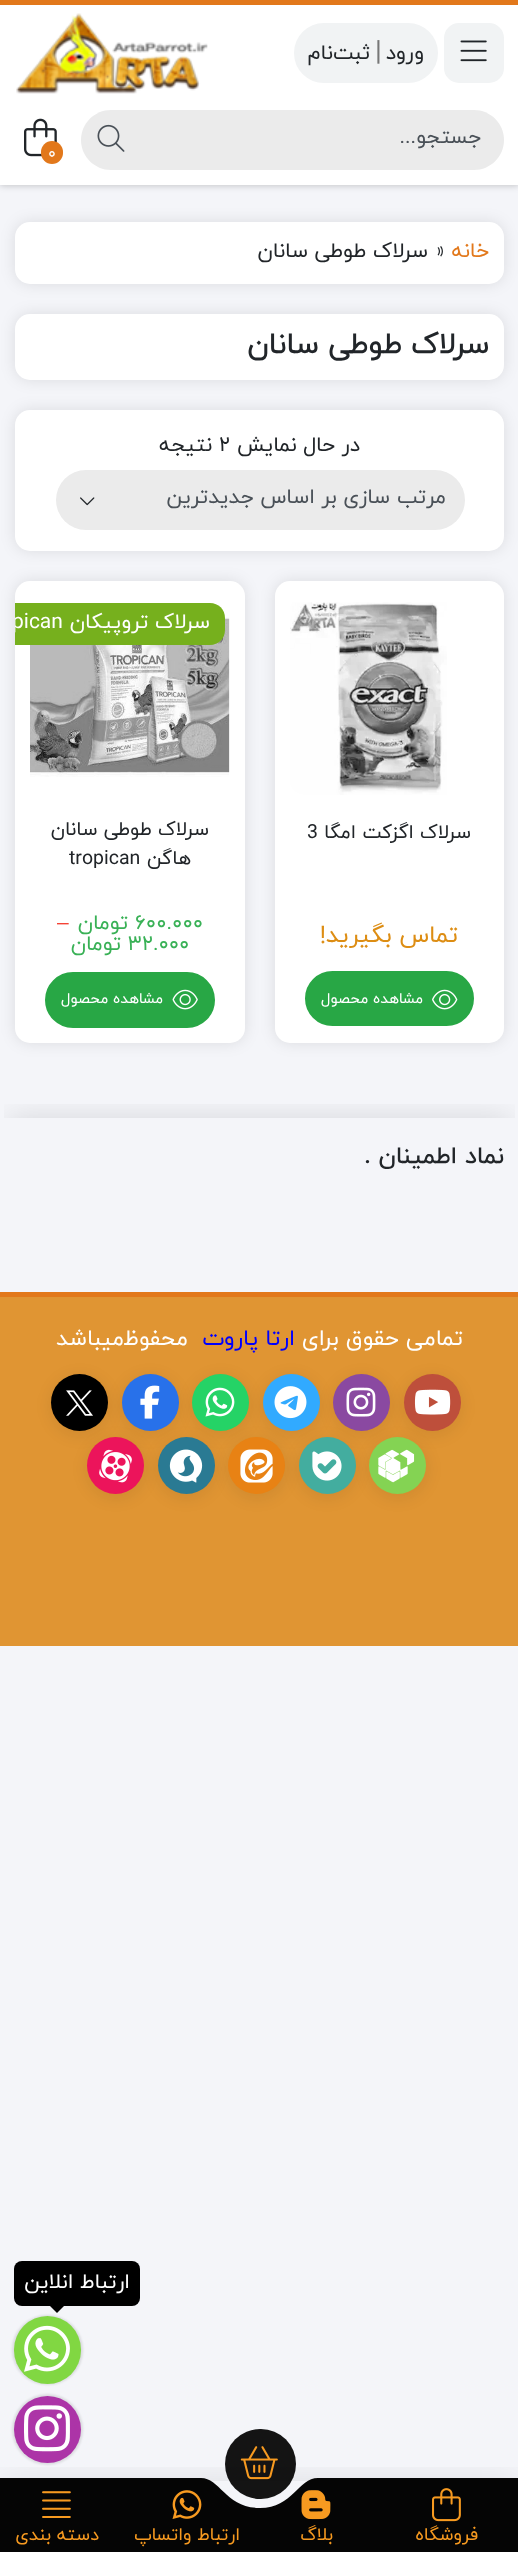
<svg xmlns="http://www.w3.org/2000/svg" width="518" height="2552">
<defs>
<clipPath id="clip1"><rect x="15" y="581" width="230" height="462" rx="15"/></clipPath>
<clipPath id="clip2"><rect x="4" y="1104" width="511" height="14"/></clipPath>
<clipPath id="clip3"><rect x="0" y="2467" width="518" height="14"/></clipPath>
</defs>
<rect width="100%" height="100%" fill="#f4f5f9"/>
<rect y="2" width="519" height="184" fill="#00000030" filter="blur(3px)"/>
<rect y="5" width="518" height="180" fill="#fff"/>
<rect width="518" height="5" fill="#e2781b"/>
<rect x="445" y="24" width="58" height="58" rx="14" fill="#f1f3f4" stroke="#f1f3f4" stroke-width="2"/>
<image x="460" y="40" width="27" height="22" href="media/1.png"/>
<rect x="295" y="24" width="142" height="58" rx="29" fill="#f1f3f4" stroke="#f1f3f4" stroke-width="2"/>
<text x="424" y="59" style="font-family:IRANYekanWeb;font-size:21px;direction:rtl;fill:#212529">ورود</text>
<text x="375" y="60" style="font-family:IRANYekanWeb;font-size:28px;fill:#777">|</text>
<text x="370" y="59" style="font-family:IRANYekanWeb;font-size:21px;direction:rtl;fill:#212529">ثبت‌نام</text>
<image x="16" y="13" width="192" height="81" href="media/2.png"/>
<path d="M141 110h333c16.5 0 30 13.5 30 30c0 16.5-13.5 30-30 30h-333z" fill="#ebebeb"/>
<text x="481" y="143" style="font-family:IRANYekanWeb;font-size:21px;direction:rtl;fill:#495057">جستجو...</text>
<path d="M111 110h30v60h-30c-16.5 0-30-13.5-30-30c0-16.5 13.5-30 30-30z" fill="#ebebeb"/>
<image x="97" y="124" width="28" height="28" href="media/3.png"/>
<image x="24" y="118" width="33" height="39" href="media/4.png"/>
<rect x="41" y="141" width="22" height="23" rx="11" fill="#e2781b"/>
<text x="48" y="158" style="font-family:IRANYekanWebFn;font-size:16px;fill:#fff">0</text>
<rect x="15" y="222" width="489" height="62" rx="15" fill="#0000001a" filter="blur(7.5px)"/>
<rect x="15" y="222" width="489" height="62" rx="15" fill="#fff"/>
<text x="489" y="257" style="font-family:IRANYekanWeb;font-size:21px;direction:rtl;fill:#e2781b">خانه</text>
<text x="435" y="257" style="font-family:IRANYekanWeb;font-size:21px;fill:#212529">»</text>
<text x="428" y="257" style="font-family:IRANYekanWeb;font-size:21px;direction:rtl;fill:#212529">سرلاک طوطی سانان</text>
<rect x="15" y="314" width="489" height="66" rx="15" fill="#0000001a" filter="blur(7.5px)"/>
<rect x="15" y="314" width="489" height="66" rx="15" fill="#fff"/>
<text x="489" y="353" style="font-family:IRANYekanWeb;font-size:30px;font-weight:500;direction:rtl;fill:#212529">سرلاک طوطی سانان</text>
<rect x="15" y="410" width="489" height="141" rx="15" fill="#0000001a" filter="blur(7.5px)"/>
<rect x="15" y="410" width="489" height="141" rx="15" fill="#fff"/>
<text x="360" y="451" style="font-family:IRANYekanWebFn;font-size:21px;direction:rtl;fill:#212529">در حال نمایش</text>
<text x="219" y="451" style="font-family:IRANYekanWebFn;font-size:21px;fill:#212529">2</text>
<text x="212" y="451" style="font-family:IRANYekanWebFn;font-size:21px;direction:rtl;fill:#212529">نتیجه</text>
<rect x="56" y="470" width="409" height="60" rx="30" fill="#ebebeb"/>
<text x="446" y="503" style="font-family:IRANYekanWeb;font-size:21px;direction:rtl;fill:#495057">مرتب سازی بر اساس جدیدترین</text>
<image x="80" y="497" width="15" height="9" href="media/5.png"/>
<rect x="275" y="581" width="229" height="462" rx="15" fill="#0000001a" filter="blur(7.5px)"/>
<rect x="275" y="581" width="229" height="462" rx="15" fill="#fff"/>
<image x="290" y="602" width="157" height="193" href="media/6.png"/>
<text x="471" y="838" style="font-family:IRANYekanWeb;font-size:19.5px;direction:rtl;fill:#212529">سرلاک اگزکت امگا</text>
<text x="307" y="838" style="font-family:IRANYekanWeb;font-size:19.5px;fill:#212529">3</text>
<text x="458" y="942" style="font-family:IRANYekanWebFn;font-size:24px;direction:rtl;fill:#dd8d13">تماس بگیرید!</text>
<rect x="306" y="972" width="167" height="53" rx="26.5" fill="#28a745" stroke="#28a745" stroke-width="2"/>
<image x="432" y="989" width="26" height="21" href="media/7.png"/>
<text x="423" y="1003" style="font-family:IRANYekanWeb;font-size:15px;direction:rtl;fill:#fff">مشاهده محصول</text>
<rect x="15" y="581" width="230" height="462" rx="15" fill="#0000001a" filter="blur(7.5px)"/>
<rect x="15" y="581" width="230" height="462" rx="15" fill="#fff"/>
<image x="30" y="617" width="200" height="160" href="media/8.png"/>
<path d="M15 603h195c8.5 0 15 6.5 15 15v12c0 8.5-6.5 15-15 15h-195z" fill="#76b01d"/>
<text x="210" y="628" style="font-family:IRANYekanWeb;font-size:21px;direction:rtl;fill:#fff">سرلاک تروپیکان</text>
<g clip-path="url(#clip1)">
<text x="12" y="628" style="font-family:IRANYekanWeb;font-size:21px;fill:#fff">pican</text>
</g>
<text x="209" y="835" style="font-family:IRANYekanWeb;font-size:19.5px;direction:rtl;fill:#212529">سرلاک طوطی سانان</text>
<text x="191" y="864" style="font-family:IRANYekanWeb;font-size:19.5px;direction:rtl;fill:#212529">هاگن</text>
<text x="69" y="864" style="font-family:IRANYekanWeb;font-size:19.5px;fill:#212529">tropican</text>
<text x="135" y="929" style="font-family:IRANYekanWebFn;font-size:21px;fill:#39b156">600.000</text>
<text x="128" y="929" style="font-family:IRANYekanWebFn;font-size:21px;direction:rtl;fill:#39b156">تومان</text>
<text x="57" y="929" style="font-family:Liberation Sans;font-size:21px;fill:#f44336">–</text>
<text x="128" y="950" style="font-family:IRANYekanWebFn;font-size:21px;fill:#39b156">32.000</text>
<text x="121" y="950" style="font-family:IRANYekanWebFn;font-size:21px;direction:rtl;fill:#39b156">تومان</text>
<rect x="46" y="973" width="168" height="54" rx="27" fill="#28a745" stroke="#28a745" stroke-width="2"/>
<image x="172" y="989" width="26" height="21" href="media/9.png"/>
<text x="163" y="1003" style="font-family:IRANYekanWeb;font-size:15px;direction:rtl;fill:#fff">مشاهده محصول</text>
<g clip-path="url(#clip2)">
<rect x="9" y="1118" width="501" height="156" fill="#0000001f" filter="blur(15px)"/>
</g>
<text x="504" y="1163" style="font-family:IRANYekanWeb;font-size:24px;font-weight:500;direction:rtl;fill:#212529">نماد اطمینان .</text>
<rect y="1297" width="518" height="349" fill="#e09533"/>
<rect y="1292" width="518" height="5" fill="#e2781b"/>
<text x="463" y="1345" style="font-family:IRANYekanWeb;font-size:22.5px;direction:rtl;fill:#fff">تمامی حقوق برای</text>
<text x="295" y="1345" style="font-family:IRANYekanWeb;font-size:22.5px;direction:rtl;fill:#00f">ارتا پاروت</text>
<text x="188" y="1345" style="font-family:IRANYekanWeb;font-size:22.5px;direction:rtl;fill:#fff">محفوظ</text>
<text x="124" y="1345" style="font-family:IRANYekanWeb;font-size:22.5px;direction:rtl;fill:#fff">میباشد</text>
<rect x="50" y="1376" width="60" height="60" rx="30" fill="#00000012" filter="blur(7.5px)"/>
<circle cx="79.5" cy="1402.5" r="28.5" fill="#000"/>
<rect x="120" y="1376" width="60" height="60" rx="30" fill="#00000012" filter="blur(7.5px)"/>
<circle cx="150.5" cy="1402.5" r="28.5" fill="#2871ea"/>
<rect x="191" y="1376" width="60" height="60" rx="30" fill="#00000012" filter="blur(7.5px)"/>
<circle cx="220.5" cy="1402.5" r="28.5" fill="#25d366"/>
<rect x="261" y="1376" width="60" height="60" rx="30" fill="#00000012" filter="blur(7.5px)"/>
<circle cx="291.5" cy="1402.5" r="28.5" fill="#31aaff"/>
<rect x="332" y="1376" width="60" height="60" rx="30" fill="#00000012" filter="blur(7.5px)"/>
<circle cx="361.5" cy="1402.5" r="28.5" fill="#8a49a1"/>
<rect x="402" y="1376" width="60" height="60" rx="30" fill="#00000012" filter="blur(7.5px)"/>
<circle cx="432.5" cy="1402.5" r="28.5" fill="#be4f3b"/>
<image x="414" y="1389" width="37" height="26" href="media/10.png"/>
<image x="346" y="1387" width="30" height="30" href="media/11.png"/>
<image x="274" y="1386" width="33" height="33" href="media/12.png"/>
<image x="205" y="1387" width="30" height="30" href="media/13.png"/>
<image x="140" y="1385" width="20" height="34" href="media/14.png"/>
<image x="66" y="1390" width="27" height="26" href="media/15.png"/>
<rect x="86" y="1439" width="60" height="60" rx="30" fill="#00000012" filter="blur(7.5px)"/>
<circle cx="115.5" cy="1465.5" r="28.5" fill="#ec145b"/>
<rect x="156" y="1439" width="60" height="60" rx="30" fill="#00000012" filter="blur(7.5px)"/>
<circle cx="186.5" cy="1465.5" r="28.5" fill="#2a7a93"/>
<rect x="227" y="1439" width="60" height="60" rx="30" fill="#00000012" filter="blur(7.5px)"/>
<circle cx="256.5" cy="1465.5" r="28.5" fill="#e88214"/>
<rect x="297" y="1439" width="60" height="60" rx="30" fill="#00000012" filter="blur(7.5px)"/>
<circle cx="327.5" cy="1465.5" r="28.5" fill="#43ad9f"/>
<rect x="368" y="1439" width="60" height="60" rx="30" fill="#00000012" filter="blur(7.5px)"/>
<circle cx="397.5" cy="1465.5" r="28.5" fill="#84d353"/>
<image x="378" y="1449" width="37" height="34" href="media/16.png"/>
<image x="312" y="1451" width="30" height="30" href="media/17.png"/>
<image x="240" y="1449" width="33" height="34" href="media/18.png"/>
<image x="169" y="1449" width="34" height="34" href="media/19.png"/>
<image x="99" y="1449" width="33" height="34" href="media/20.png"/>
<rect x="14" y="2261" width="126" height="45" rx="8" fill="#000"/>
<text x="130" y="2288" style="font-family:IRANYekanWebFn;font-size:21px;direction:rtl;fill:#fff">ارتباط انلاین</text>
<rect x="12" y="2315" width="71" height="70" rx="35" fill="#0000001a" filter="blur(1px)"/>
<path d="M49.5 2305.5h15l-7.5 7.5z" fill="#000"/>
<rect x="14" y="2316" width="67" height="68" rx="33.5" fill="#81d742"/>
<image x="24" y="2325" width="46" height="47" href="media/21.png"/>
<rect x="12" y="2394" width="71" height="71" rx="35.5" fill="#0000001a" filter="blur(1px)"/>
<g clip-path="url(#clip3)">
<rect y="2483" width="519" height="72" fill="#0000001a" filter="blur(19px)"/>
</g>
<circle cx="47.5" cy="2429.5" r="33.5" fill="#ac34a7"/>
<image x="24" y="2405" width="46" height="47" href="media/22.png"/>
<path d="M-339 2478h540c19 0 25 30 59 30c33 0 38-30 58-30h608v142h-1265z" fill="#000000fa" fill-rule="evenodd"/>
<rect x="225" y="2429" width="71" height="70" rx="35" fill="#000000eb"/>
<image x="240" y="2446" width="38" height="34" href="media/23.png"/>
<image x="432" y="2488" width="29" height="34" href="media/24.png"/>
<text x="478" y="2540" style="font-family:IRANYekanWeb;font-size:18px;direction:rtl;fill:#f79a20">فروشگاه</text>
<image x="301" y="2490" width="30" height="30" href="media/25.png"/>
<text x="333" y="2540" style="font-family:IRANYekanWeb;font-size:18px;direction:rtl;fill:#f79a20">بلاگ</text>
<image x="172" y="2490" width="30" height="29" href="media/26.png"/>
<text x="240" y="2540" style="font-family:IRANYekanWeb;font-size:18px;direction:rtl;fill:#f79a20">ارتباط واتساپ</text>
<image x="42" y="2491" width="29" height="27" href="media/27.png"/>
<text x="99" y="2540" style="font-family:IRANYekanWeb;font-size:18px;direction:rtl;fill:#f79a20">دسته بندی</text>
</svg>
